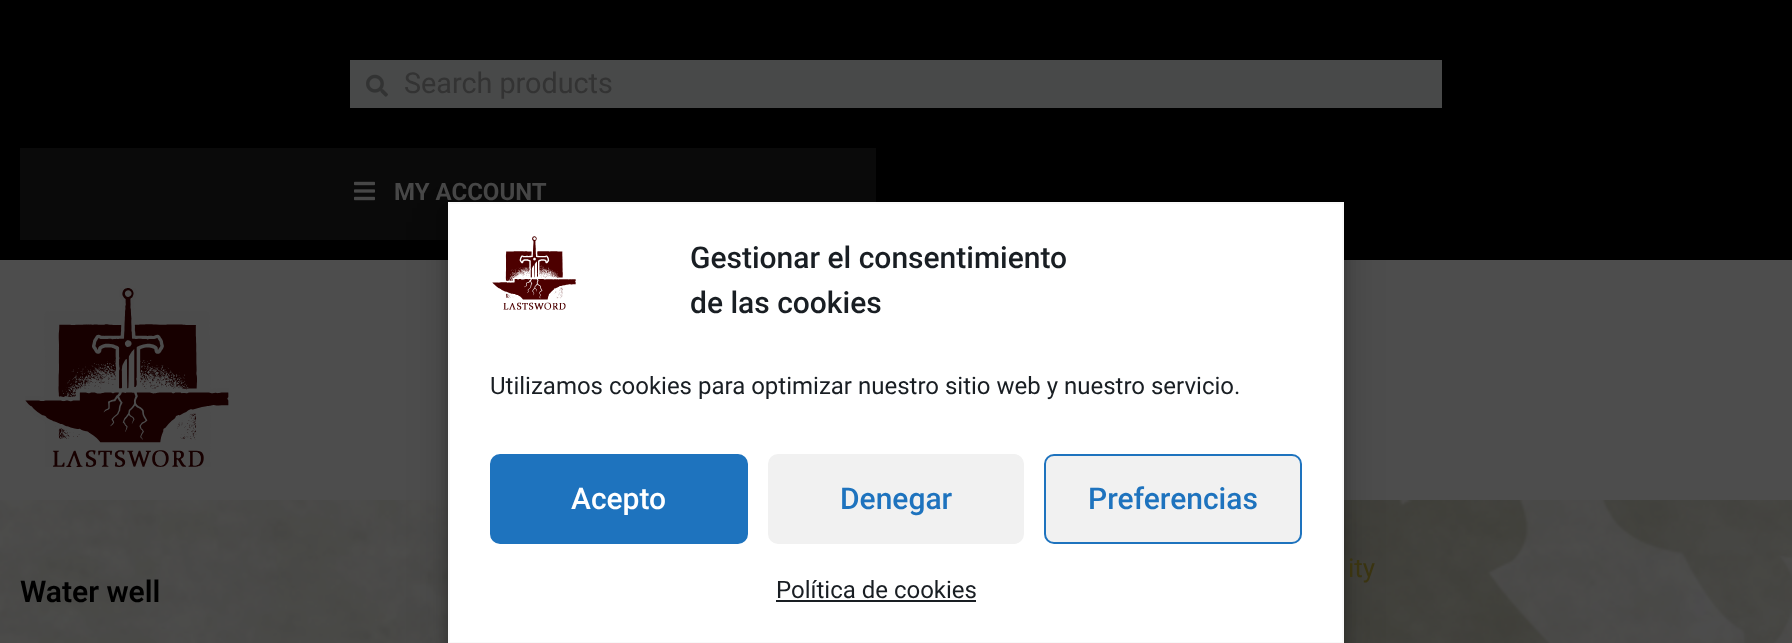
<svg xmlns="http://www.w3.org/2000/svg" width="1792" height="643">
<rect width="100%" height="100%" fill="#4d4d4d"/>
<rect width="1792" height="260" fill="#000"/>
<rect x="350" y="60" width="1092" height="48" fill="#484949"/>
<image x="366" y="74" width="22" height="23" href="media/1.png"/>
<text x="404" y="93" style="font-family:Roboto;font-size:28.75px;fill:#333">Search products</text>
<rect x="20" y="148" width="856" height="92" fill="#0a0a0a"/>
<image x="354" y="181" width="21" height="20" href="media/2.png"/>
<text x="394" y="200" style="font-family:Roboto;font-size:24px;font-weight:bold;fill:#474747">MY ACCOUNT</text>
<image x="25" y="288" width="204" height="179" href="media/3.png"/>
<image x="0" y="500" width="1792" height="143" href="media/5.png"/>
<rect x="448" y="214" width="896" height="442" fill="#0000003b" filter="blur(6px)"/>
<rect x="448" y="222" width="896" height="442" fill="#00000030" filter="blur(20px)"/>
<rect x="449" y="203" width="894" height="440" fill="#fff" stroke="#f9f9f9" stroke-width="2"/>
<image x="492" y="236" width="84" height="74" href="media/4.png"/>
<text x="690" y="268" style="font-family:Roboto;font-size:30px;font-weight:500;fill:#191e23">Gestionar el consentimiento</text>
<text x="690" y="313" style="font-family:Roboto;font-size:30px;font-weight:500;fill:#191e23">de las cookies</text>
<text x="490" y="394" style="font-family:Roboto;font-size:24px;fill:#191e23">Utilizamos cookies para optimizar nuestro sitio web y nuestro servicio.</text>
<rect x="491" y="455" width="256" height="88" rx="9" fill="#1e73be" stroke="#1e73be" stroke-width="2"/>
<text x="571" y="509" style="font-family:Roboto;font-size:30px;font-weight:500;fill:#fff">Acepto</text>
<rect x="769" y="455" width="254" height="88" rx="9" fill="#f1f1f1" stroke="#f1f1f1" stroke-width="2"/>
<text x="840" y="509" style="font-family:Roboto;font-size:30px;font-weight:500;fill:#1e73be">Denegar</text>
<rect x="1045" y="455" width="256" height="88" rx="9" fill="#f1f1f1" stroke="#1e73be" stroke-width="2"/>
<text x="1088" y="509" style="font-family:Roboto;font-size:30px;font-weight:500;fill:#1e73be">Preferencias</text>
<text x="776" y="598" style="font-family:Roboto;font-size:24px;fill:#191e23">Política de cookies</text>
<rect x="776" y="600" width="200" height="2" fill="#191e23"/>
<text x="1348" y="577" style="font-family:Roboto;font-size:26px;fill:#3a3410">ity</text>
<text x="20" y="602" style="font-family:Roboto;font-size:30px;font-weight:600;fill:#000">Water well</text>
</svg>
